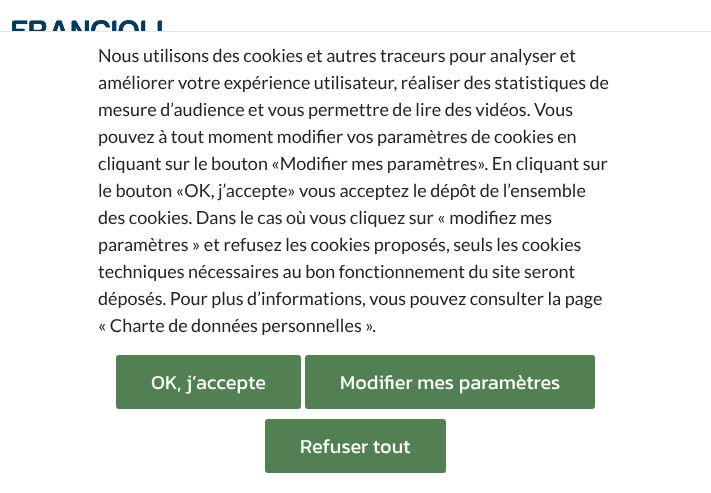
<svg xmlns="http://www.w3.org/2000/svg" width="711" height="493">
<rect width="100%" height="100%" fill="#fff"/>
<image x="12" y="20" width="150" height="11" href="media/1.png"/>
<rect y="31" width="711" height="1" fill="#e6e6e6"/>
<text x="98" y="62" style="font-family:Lato;font-size:18px;fill:#212529">Nous utilisons des cookies et autres traceurs pour analyser et</text>
<text x="98" y="89" style="font-family:Lato;font-size:18px;fill:#212529">améliorer votre expérience utilisateur, réaliser des statistiques de</text>
<text x="98" y="116" style="font-family:Lato;font-size:18px;fill:#212529">mesure d’audience et vous permettre de lire des vidéos. Vous</text>
<text x="98" y="143" style="font-family:Lato;font-size:18px;fill:#212529">pouvez à tout moment modifier vos paramètres de cookies en</text>
<text x="98" y="170" style="font-family:Lato;font-size:18px;fill:#212529">cliquant sur le bouton «Modifier mes paramètres». En cliquant sur</text>
<text x="98" y="197" style="font-family:Lato;font-size:18px;fill:#212529">le bouton «OK, j’accepte» vous acceptez le dépôt de l’ensemble</text>
<text x="98" y="224" style="font-family:Lato;font-size:18px;fill:#212529">des cookies. Dans le cas où vous cliquez sur « modifiez mes</text>
<text x="98" y="251" style="font-family:Lato;font-size:18px;fill:#212529">paramètres » et refusez les cookies proposés, seuls les cookies</text>
<text x="98" y="278" style="font-family:Lato;font-size:18px;fill:#212529">techniques nécessaires au bon fonctionnement du site seront</text>
<text x="98" y="305" style="font-family:Lato;font-size:18px;fill:#212529">déposés. Pour plus d’informations, vous pouvez consulter la page</text>
<text x="98" y="332" style="font-family:Lato;font-size:18px;fill:#212529">« Charte de données personnelles ».</text>
<rect x="116" y="355" width="185" height="54" rx="3" fill="#528052"/>
<text x="151" y="389" style="font-family:Kanit;font-size:20px;fill:#fff">OK, j’accepte</text>
<rect x="305" y="355" width="290" height="54" rx="3" fill="#528052"/>
<text x="340" y="389" style="font-family:Kanit;font-size:20px;fill:#fff">Modifier mes paramètres</text>
<rect x="265" y="419" width="181" height="54" rx="3" fill="#528052"/>
<text x="300" y="453" style="font-family:Kanit;font-size:20px;fill:#fff">Refuser tout</text>
</svg>
